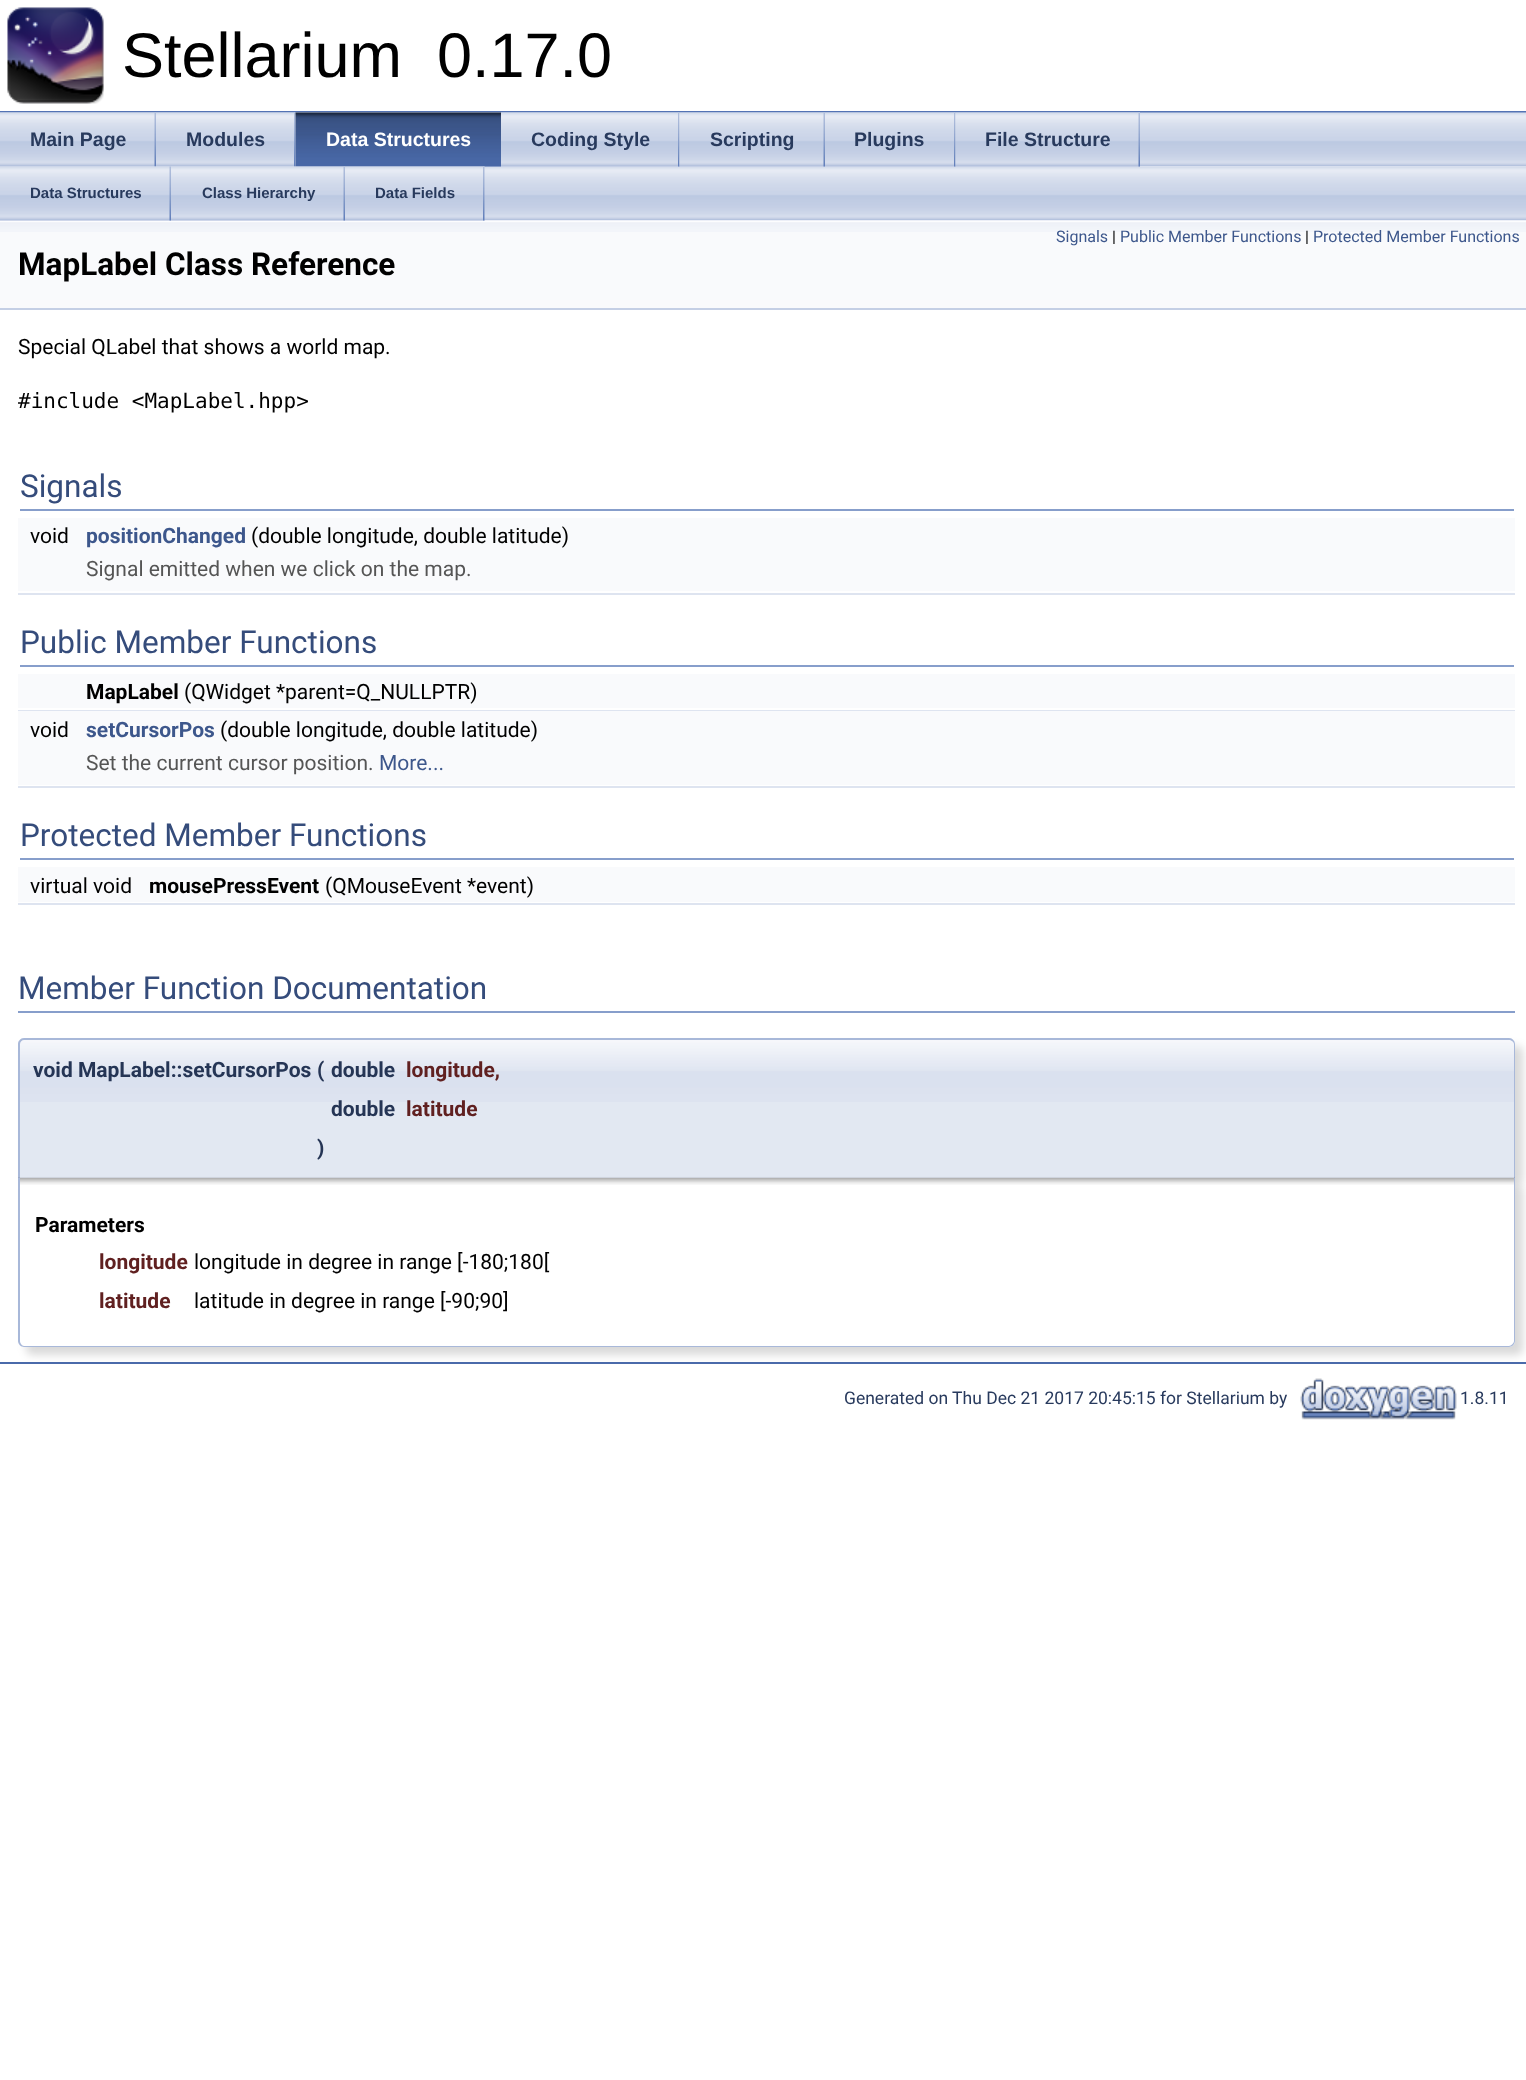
<svg xmlns="http://www.w3.org/2000/svg" width="1526" height="2080">
<rect width="100%" height="100%" fill="#fff"/>
<rect y="111" width="1526" height="2" fill="#5373b4"/>
<image x="7" y="7" width="97" height="97" href="media/1.png"/>
<text x="122" y="77" style="font-family:Liberation Sans;font-size:63px;fill:#000">Stellarium</text>
<text x="437" y="77" style="font-family:Liberation Sans;font-size:63px;fill:#000">0.17.0</text>
<image x="0" y="112" width="1526" height="55" href="media/2.png"/>
<image x="0" y="112" width="156" height="55" href="media/3.png"/>
<image x="154" y="113" width="2" height="54" href="media/4.png"/>
<text x="30" y="146" style="font-family:Liberation Sans;font-size:19.5px;font-weight:bold;fill:#283a5d">Main Page</text>
<image x="156" y="112" width="140" height="55" href="media/5.png"/>
<image x="294" y="113" width="2" height="54" href="media/6.png"/>
<text x="186" y="146" style="font-family:Liberation Sans;font-size:19.5px;font-weight:bold;fill:#283a5d">Modules</text>
<image x="295" y="112" width="206" height="55" href="media/7.png"/>
<image x="295" y="112" width="206" height="55" href="media/8.png"/>
<text x="326" y="146" style="font-family:Liberation Sans;font-size:19.5px;font-weight:bold;fill:#fff">Data Structures</text>
<image x="501" y="112" width="179" height="55" href="media/9.png"/>
<image x="678" y="113" width="2" height="54" href="media/6.png"/>
<text x="531" y="146" style="font-family:Liberation Sans;font-size:19.5px;font-weight:bold;fill:#283a5d">Coding Style</text>
<image x="679" y="112" width="146" height="55" href="media/10.png"/>
<image x="823" y="113" width="2" height="54" href="media/4.png"/>
<text x="710" y="146" style="font-family:Liberation Sans;font-size:19.5px;font-weight:bold;fill:#283a5d">Scripting</text>
<image x="825" y="112" width="131" height="55" href="media/11.png"/>
<image x="954" y="113" width="2" height="54" href="media/6.png"/>
<text x="854" y="146" style="font-family:Liberation Sans;font-size:19.5px;font-weight:bold;fill:#283a5d">Plugins</text>
<image x="955" y="112" width="185" height="55" href="media/12.png"/>
<image x="1138" y="113" width="2" height="54" href="media/4.png"/>
<text x="985" y="146" style="font-family:Liberation Sans;font-size:19.5px;font-weight:bold;fill:#283a5d">File Structure</text>
<image x="0" y="167" width="1526" height="54" href="media/13.png"/>
<image x="0" y="220" width="1526" height="12" href="media/20.png"/>
<image x="0" y="166" width="171" height="55" href="media/14.png"/>
<image x="169" y="166" width="2" height="55" href="media/15.png"/>
<text x="30" y="198" style="font-family:Liberation Sans;font-size:15px;font-weight:bold;fill:#283a5d">Data Structures</text>
<image x="171" y="166" width="174" height="55" href="media/16.png"/>
<image x="343" y="167" width="2" height="54" href="media/17.png"/>
<text x="202" y="198" style="font-family:Liberation Sans;font-size:15px;font-weight:bold;fill:#283a5d">Class Hierarchy</text>
<image x="345" y="166" width="140" height="55" href="media/18.png"/>
<image x="483" y="166" width="2" height="55" href="media/19.png"/>
<text x="375" y="198" style="font-family:Liberation Sans;font-size:15px;font-weight:bold;fill:#283a5d">Data Fields</text>
<rect y="232" width="1526" height="76" fill="#f9fafc"/>
<rect y="308" width="1526" height="2" fill="#c4cfe5"/>
<text x="1056" y="242" style="font-family:Roboto;font-size:16px;fill:#3d578c">Signals</text>
<text x="1112" y="242" style="font-family:Roboto;font-size:16px;fill:#000">|</text>
<text x="1120" y="242" style="font-family:Roboto;font-size:16px;fill:#3d578c">Public Member Functions</text>
<text x="1305" y="242" style="font-family:Roboto;font-size:16px;fill:#000">|</text>
<text x="1313" y="242" style="font-family:Roboto;font-size:16px;fill:#3d578c">Protected Member Functions</text>
<text x="18" y="275" style="font-family:Roboto;font-size:31.5px;font-weight:bold;fill:#000">MapLabel Class Reference</text>
<text x="18" y="354" style="font-family:Roboto;font-size:21px;fill:#000">Special QLabel that shows a world map.</text>
<text x="18" y="408" style="font-family:DejaVu Sans Mono;font-size:21px;fill:#000">#include &lt;MapLabel.hpp&gt;</text>
<rect x="20" y="509" width="1494" height="2" fill="#879ecb"/>
<text x="20" y="497" style="font-family:Roboto;font-size:31.5px;fill:#354c7b">Signals</text>
<rect x="18" y="518" width="1497" height="34" fill="#f9fafc"/>
<text x="30" y="543" style="font-family:Roboto;font-size:21px;fill:#000">void</text>
<text x="86" y="543" style="font-family:Roboto;font-size:21px;font-weight:bold;fill:#3d578c">positionChanged</text>
<text x="251" y="543" style="font-family:Roboto;font-size:21px;fill:#000">(double longitude, double latitude)</text>
<rect x="18" y="552" width="1497" height="39" fill="#f9fafc"/>
<text x="86" y="576" style="font-family:Roboto;font-size:21px;fill:#555">Signal emitted when we click on the map.</text>
<rect x="18" y="593" width="1497" height="2" fill="#dee4f0"/>
<rect x="20" y="665" width="1494" height="2" fill="#879ecb"/>
<text x="20" y="653" style="font-family:Roboto;font-size:31.5px;fill:#354c7b">Public Member Functions</text>
<rect x="18" y="674" width="1497" height="34" fill="#f9fafc"/>
<text x="86" y="699" style="font-family:Roboto;font-size:21px;font-weight:bold;fill:#000">MapLabel</text>
<text x="184" y="699" style="font-family:Roboto;font-size:21px;fill:#000">(QWidget *parent=Q_NULLPTR)</text>
<rect x="18" y="710" width="1497" height="1" fill="#dee4f0"/>
<rect x="18" y="711" width="1497" height="35" fill="#f9fafc"/>
<text x="30" y="737" style="font-family:Roboto;font-size:21px;fill:#000">void</text>
<text x="86" y="737" style="font-family:Roboto;font-size:21px;font-weight:bold;fill:#3d578c">setCursorPos</text>
<text x="220" y="737" style="font-family:Roboto;font-size:21px;fill:#000">(double longitude, double latitude)</text>
<rect x="18" y="746" width="1497" height="39" fill="#f9fafc"/>
<text x="86" y="770" style="font-family:Roboto;font-size:21px;fill:#555">Set the current cursor position.</text>
<text x="379" y="770" style="font-family:Roboto;font-size:21px;fill:#3d578c">More...</text>
<rect x="18" y="786" width="1497" height="2" fill="#dee4f0"/>
<rect x="20" y="858" width="1494" height="2" fill="#879ecb"/>
<text x="20" y="846" style="font-family:Roboto;font-size:31.5px;fill:#354c7b">Protected Member Functions</text>
<rect x="18" y="867" width="1497" height="35" fill="#f9fafc"/>
<text x="30" y="893" style="font-family:Roboto;font-size:21px;fill:#000">virtual void</text>
<text x="149" y="893" style="font-family:Roboto;font-size:21px;font-weight:bold;fill:#000">mousePressEvent</text>
<text x="325" y="893" style="font-family:Roboto;font-size:21px;fill:#000">(QMouseEvent *event)</text>
<rect x="18" y="903" width="1497" height="2" fill="#dee4f0"/>
<rect x="18" y="1011" width="1497" height="2" fill="#879ecb"/>
<text x="18" y="999" style="font-family:Roboto;font-size:31.5px;fill:#354c7b">Member Function Documentation</text>
<rect x="26" y="1046" width="1497" height="139" rx="6" fill="#00000026" filter="blur(4px)"/>
<path d="M24 1038h1485c3.5 0 6 2.5 6 6v134h-1497v-134c0-3.5 2.5-6 6-6z" fill="#e2e8f2"/>
<image x="18" y="1039" width="1497" height="63" href="media/21.png"/>
<path d="M24 1038h1485c3 0 6 3 6 6v134h-1497v-134c0-3 3-6 6-6zm0 2h1485c2 0 5 2 5 4v134h-1494v-134c0-2 2-4 4-4z" fill="#a8b8d9" fill-rule="evenodd"/>
<text x="33" y="1077" style="font-family:Roboto;font-size:21px;font-weight:bold;fill:#253555">void MapLabel::setCursorPos</text>
<text x="317" y="1077" style="font-family:Roboto;font-size:21px;font-weight:bold;fill:#253555">(</text>
<text x="331" y="1077" style="font-family:Roboto;font-size:21px;font-weight:bold;fill:#253555">double</text>
<text x="406" y="1077" style="font-family:Roboto;font-size:21px;font-weight:bold;fill:#602020">longitude,</text>
<text x="331" y="1116" style="font-family:Roboto;font-size:21px;font-weight:bold;fill:#253555">double</text>
<text x="406" y="1116" style="font-family:Roboto;font-size:21px;font-weight:bold;fill:#602020">latitude</text>
<text x="317" y="1155" style="font-family:Roboto;font-size:21px;font-weight:bold;fill:#253555">)</text>
<rect x="26" y="1185" width="1497" height="170" rx="6" fill="#00000026" filter="blur(4px)"/>
<path d="M18 1178h1497v163c0 3.5-2.5 6-6 6h-1485c-3.5 0-6-2.5-6-6z" fill="#fff"/>
<image x="18" y="1177" width="1497" height="8" href="media/22.png"/>
<path d="M18 1178h1497v163c0 3-3 6-6 6h-1485c-3 0-6-3-6-6zm2 0h1494v163c0 2-3 5-5 5h-1485c-2 0-4-3-4-5z" fill="#a8b8d9" fill-rule="evenodd"/>
<text x="35" y="1232" style="font-family:Roboto;font-size:21px;font-weight:bold;fill:#000">Parameters</text>
<text x="99" y="1269" style="font-family:Roboto;font-size:21px;font-weight:bold;fill:#602020">longitude</text>
<text x="194" y="1269" style="font-family:Roboto;font-size:21px;fill:#000">longitude in degree in range [-180;180[</text>
<text x="99" y="1308" style="font-family:Roboto;font-size:21px;font-weight:bold;fill:#602020">latitude</text>
<text x="194" y="1308" style="font-family:Roboto;font-size:21px;fill:#000">latitude in degree in range [-90;90]</text>
<rect y="1362" width="1526" height="2" fill="#4a6aaa"/>
<text x="844" y="1404" style="font-family:Roboto;font-size:17.5px;fill:#283a5d">Generated on Thu Dec 21 2017 20:45:15 for Stellarium by</text>
<image x="1300" y="1378" width="157" height="42" href="media/23.png"/>
<text x="1460" y="1404" style="font-family:Roboto;font-size:17.5px;fill:#283a5d">1.8.11</text>
</svg>
